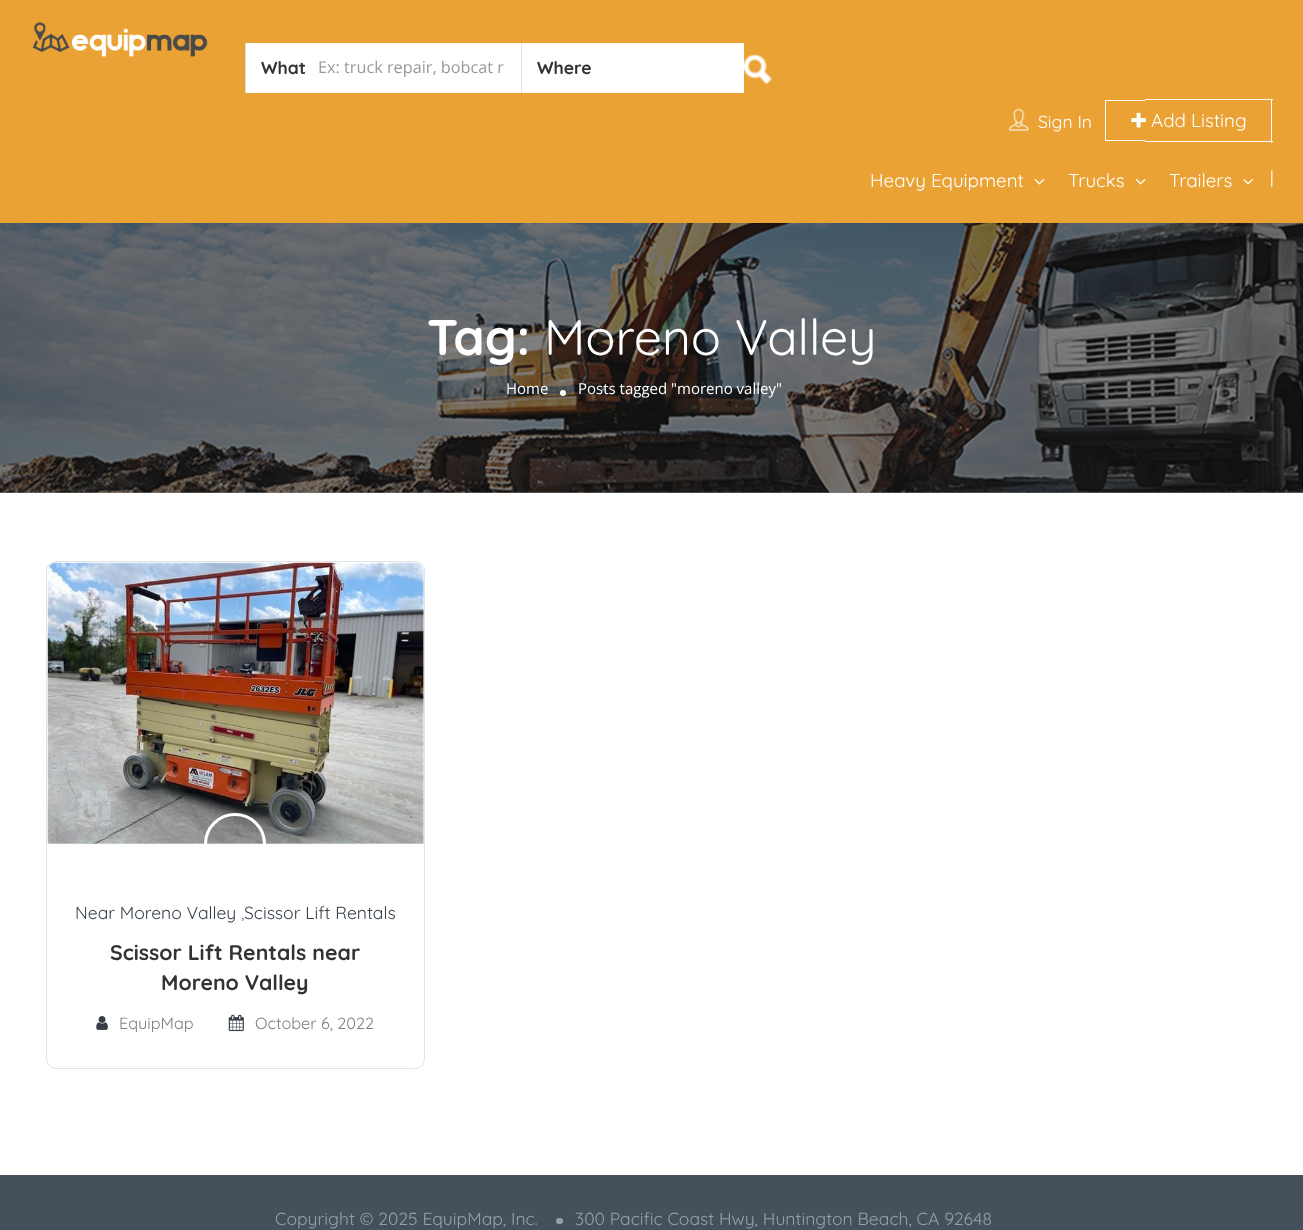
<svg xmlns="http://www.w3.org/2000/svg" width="1303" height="1230">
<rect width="100%" height="100%" fill="#fff"/>
<rect y="492" width="1303" height="1" fill="#808080"/>
<rect width="1303" height="223" fill="#eaa235"/>
<image x="32" y="22" width="176" height="35" href="media/1.png"/>
<rect x="246" y="43" width="275" height="50" fill="#fff"/>
<rect x="245" y="43" width="1" height="50" fill="#dedede"/>
<text x="261" y="74" style="font-family:Quicksand;font-size:17.5px;font-weight:bold;fill:#333">What</text>
<text x="318" y="73" style="font-family:Open Sans;font-size:16.25px;fill:#999">Ex: truck repair, bobcat r</text>
<rect x="522" y="43" width="222" height="50" fill="#fff"/>
<rect x="521" y="43" width="1" height="50" fill="#dedede"/>
<text x="537" y="74" style="font-family:Quicksand;font-size:17.5px;font-weight:bold;fill:#333">Where</text>
<image x="744" y="54" width="28" height="30" href="media/2.png"/>
<image x="1008" y="108" width="21" height="23" href="media/3.png"/>
<text x="1038" y="128" style="font-family:Quicksand;font-size:17.5px;fill:#fff">Sign In</text>
<rect x="1105" y="100" width="40" height="1" fill="#fff"/>
<rect x="1105" y="140" width="40" height="1" fill="#fff"/>
<rect x="1105" y="100" width="1" height="41" fill="#fff"/>
<rect x="1145" y="99" width="128" height="1" fill="#fff"/>
<rect x="1271" y="99" width="1" height="44" fill="#fff"/>
<rect x="1145" y="141" width="128" height="1" fill="#fff"/>
<image x="1131" y="112" width="15" height="16" href="media/4.png"/>
<text x="1151" y="127" style="font-family:Quicksand;font-size:18.75px;fill:#fff">Add Listing</text>
<text x="870" y="187" style="font-family:Quicksand;font-size:18.75px;fill:#fff">Heavy Equipment</text>
<image x="1034" y="178" width="11" height="7" href="media/5.png"/>
<text x="1068" y="187" style="font-family:Quicksand;font-size:18.75px;fill:#fff">Trucks</text>
<image x="1135" y="178" width="11" height="7" href="media/6.png"/>
<text x="1169" y="187" style="font-family:Quicksand;font-size:18.75px;fill:#fff">Trailers</text>
<image x="1243" y="178" width="10" height="7" href="media/7.png"/>
<text x="1270" y="184" style="font-family:Quicksand;font-size:17.5px;fill:#fff">|</text>
<image x="0" y="223" width="1303" height="270" href="media/8.png"/>
<text x="427" y="355" style="font-family:Quicksand;font-size:50px;font-weight:bold;fill:#fff">Tag:</text>
<text x="544" y="355" style="font-family:Quicksand;font-size:50px;fill:#fff">Moreno Valley</text>
<text x="506" y="394" style="font-family:Open Sans;font-size:15px;fill:#fff">Home</text>
<circle cx="563" cy="393" r="3" fill="#fff"/>
<text x="578" y="394" style="font-family:Open Sans;font-size:15px;fill:#fff">Posts tagged "moreno valley"</text>
<rect x="46.5" y="561.5" width="378" height="507" rx="9.5" fill="none" stroke="#e3e3e3"/>
<image x="47" y="562" width="377" height="282" href="media/9.png"/>
<circle cx="235" cy="844" r="29.5" fill="none" stroke="#fff" stroke-width="3"/>
<text x="75" y="919" style="font-family:Quicksand;font-size:17.5px;fill:#363f48">Near Moreno Valley</text>
<text x="241" y="919" style="font-family:Quicksand;font-size:17.5px;fill:#7f7f7f">,</text>
<text x="244" y="919" style="font-family:Quicksand;font-size:17.5px;fill:#363f48">Scissor Lift Rentals</text>
<text x="110" y="960" style="font-family:Quicksand;font-size:21.25px;font-weight:bold;fill:#333">Scissor Lift Rentals near</text>
<text x="161" y="990" style="font-family:Quicksand;font-size:21.25px;font-weight:bold;fill:#333">Moreno Valley</text>
<image x="96" y="1016" width="12" height="14" href="media/10.png"/>
<text x="119" y="1029" style="font-family:Quicksand;font-size:16.25px;fill:#7f7f7f">EquipMap</text>
<image x="228" y="1014" width="16" height="18" href="media/11.png"/>
<text x="255" y="1029" style="font-family:Quicksand;font-size:16.25px;fill:#7f7f7f">October 6, 2022</text>
<rect y="1175" width="1303" height="55" fill="#45505b"/>
<text x="275" y="1225" style="font-family:Quicksand;font-size:17.5px;fill:#96a0a9">Copyright © 2025 EquipMap, Inc.</text>
<rect x="556" y="1218" width="7" height="6" rx="3" fill="#96a0a9"/>
<text x="575" y="1225" style="font-family:Quicksand;font-size:17.5px;fill:#96a0a9">300 Pacific Coast Hwy, Huntington Beach, CA 92648</text>
</svg>
